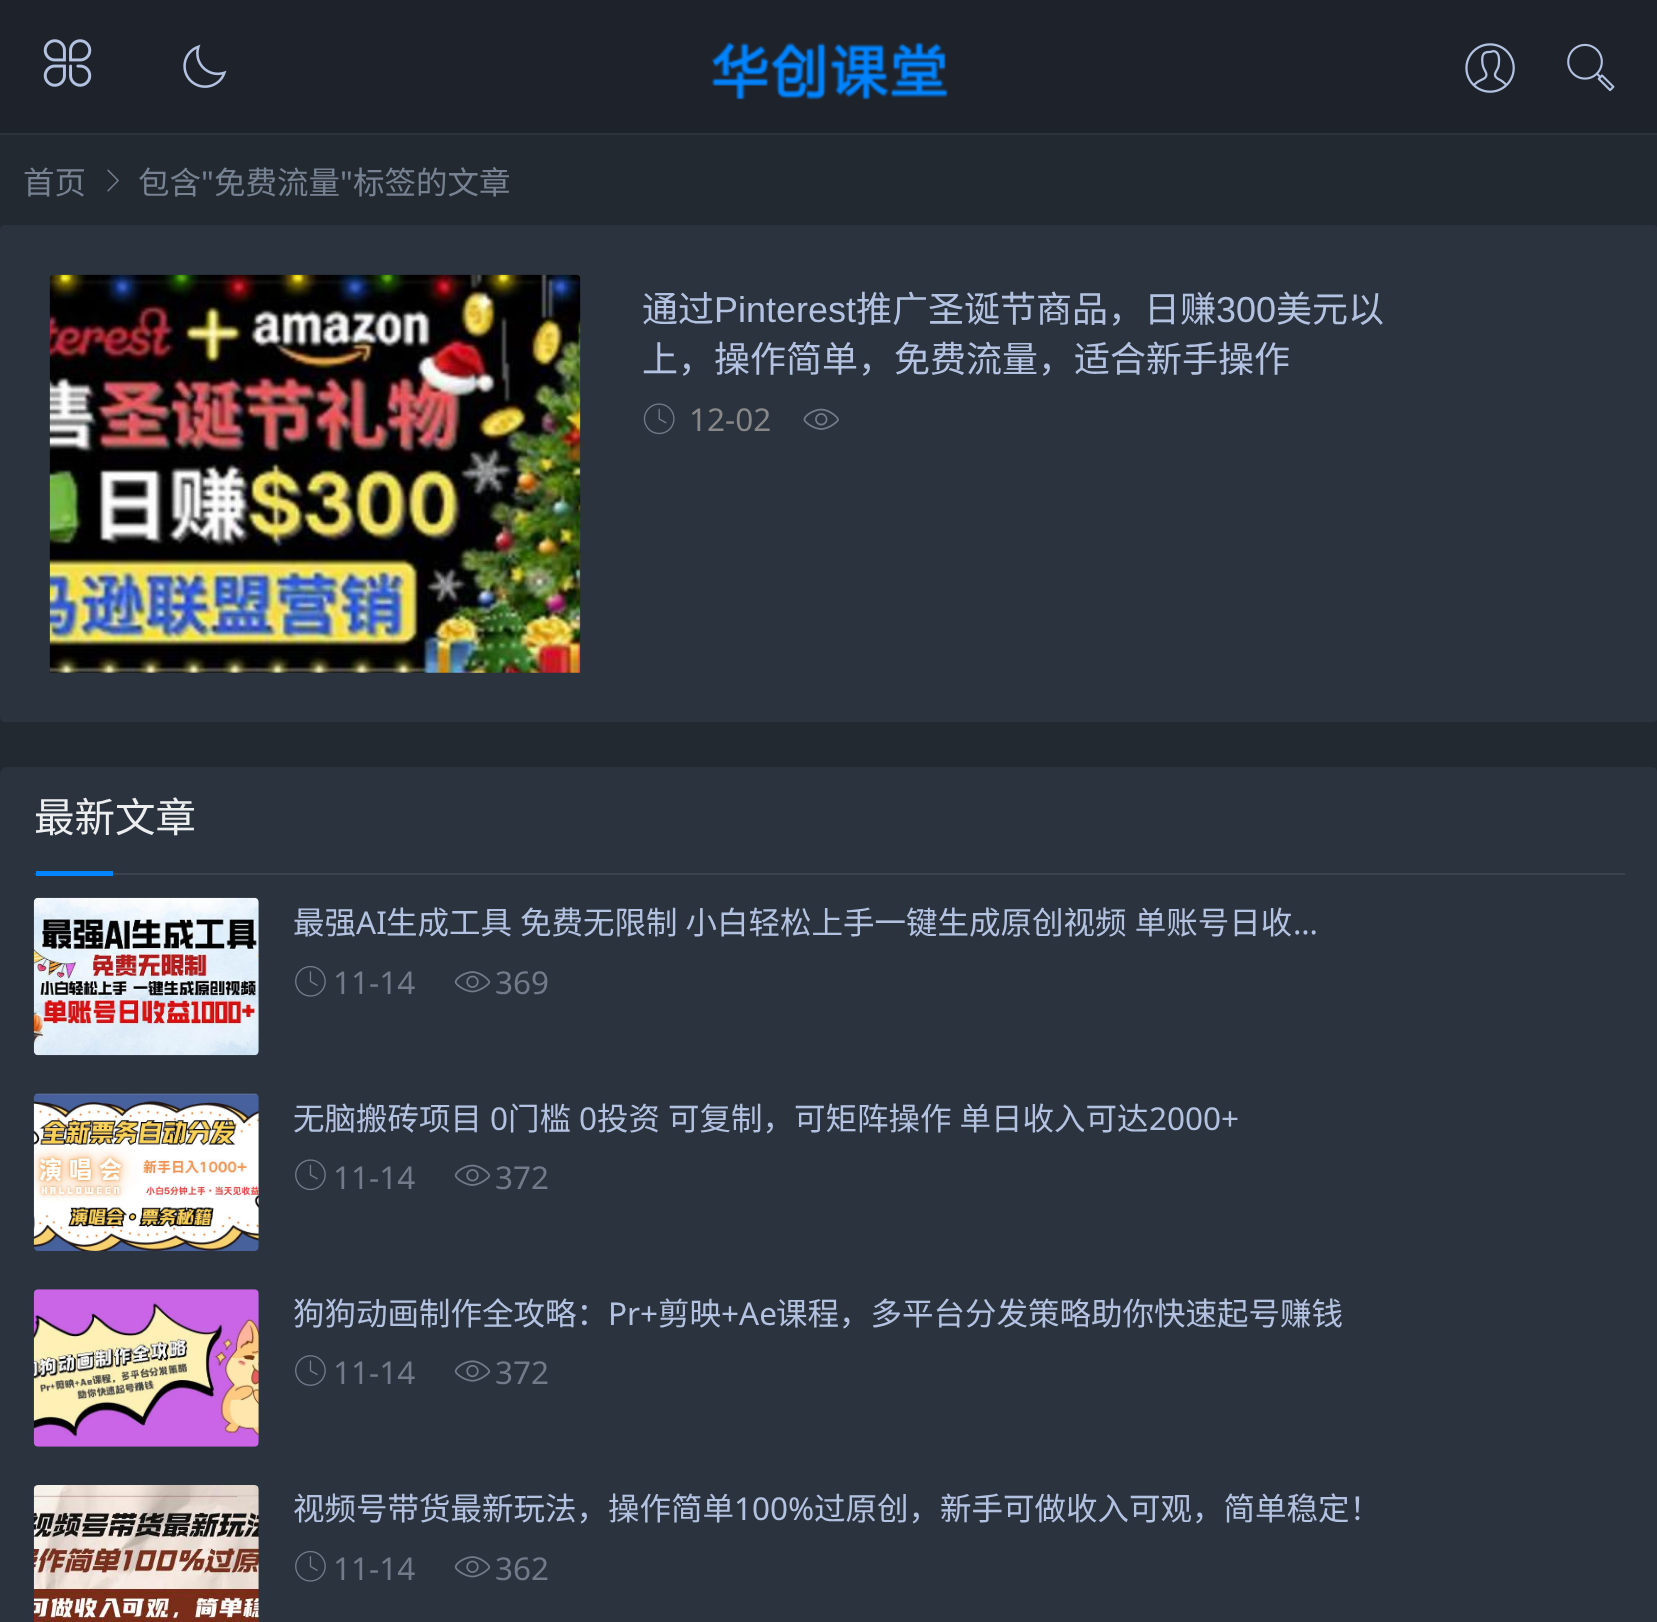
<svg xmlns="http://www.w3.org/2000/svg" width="1657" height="1622">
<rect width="100%" height="100%" fill="#232931"/>
<rect width="1657" height="133" fill="#1e232b"/>
<rect y="133" width="1657" height="2" fill="#2c333c"/>
<image x="43" y="39" width="49" height="48" href="media/1.png"/>
<image x="183" y="44" width="44" height="44" href="media/2.png"/>
<image x="711" y="42" width="237" height="58" href="media/3.png"/>
<image x="1465" y="43" width="50" height="50" href="media/4.png"/>
<image x="1567" y="43" width="48" height="49" href="media/5.png"/>
<text x="23" y="194" style="font-family:Noto Sans CJK SC;font-size:31.5px;fill:#768291">首页</text>
<image x="107" y="169" width="12" height="23" href="media/6.png"/>
<text x="138" y="194" style="font-family:Noto Sans CJK SC;font-size:31.5px;fill:#768291">包含</text>
<text x="201" y="194" style="font-family:Noto Sans;font-size:31.5px;fill:#768291">"</text>
<text x="214" y="194" style="font-family:Noto Sans CJK SC;font-size:31.5px;fill:#768291">免费流量</text>
<text x="340" y="194" style="font-family:Noto Sans;font-size:31.5px;fill:#768291">"</text>
<text x="353" y="194" style="font-family:Noto Sans CJK SC;font-size:31.5px;fill:#768291">标签的文章</text>
<rect y="225" width="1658" height="497" rx="5" fill="#2b333e"/>
<image x="49" y="274" width="532" height="399" href="media/7.png"/>
<text x="642" y="322" style="font-family:Noto Sans CJK SC;font-size:36px;fill:#b4c2e1">通过</text>
<text x="714" y="322" style="font-family:Liberation Sans;font-size:36px;fill:#b4c2e1">Pinterest</text>
<text x="856" y="322" style="font-family:Noto Sans CJK SC;font-size:36px;fill:#b4c2e1">推广圣诞节商品，日赚</text>
<text x="1216" y="322" style="font-family:Liberation Sans;font-size:36px;fill:#b4c2e1">300</text>
<text x="1276" y="322" style="font-family:Noto Sans CJK SC;font-size:36px;fill:#b4c2e1">美元以</text>
<text x="642" y="372" style="font-family:Noto Sans CJK SC;font-size:36px;fill:#b4c2e1">上，操作简单，免费流量，适合新手操作</text>
<image x="643" y="403" width="32" height="32" href="media/8.png"/>
<text x="689" y="431" style="font-family:Noto Sans;font-size:31.5px;fill:#888">12-02</text>
<image x="803" y="408" width="36" height="22" href="media/9.png"/>
<rect y="767" width="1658" height="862" rx="7" fill="#2b333e"/>
<rect x="34" y="873" width="1591" height="2" fill="#39444f"/>
<text x="34" y="832" style="font-family:Noto Sans CJK SC;font-size:40.5px;fill:#edeef0">最新文章</text>
<rect x="36" y="871" width="77" height="5" fill="#0084ff"/>
<image x="33" y="897" width="226" height="159" href="media/10.png"/>
<text x="293" y="934" style="font-family:Noto Sans CJK SC;font-size:31.5px;fill:#b4c2e1">最强</text>
<text x="356" y="934" style="font-family:Noto Sans;font-size:31.5px;fill:#b4c2e1">AI</text>
<text x="386" y="934" word-spacing="1" style="font-family:Noto Sans CJK SC;font-size:31.5px;fill:#b4c2e1">生成工具 免费无限制 小白轻松上手一键生成原创视频 单账号日收</text>
<text x="1293" y="934" style="font-family:Noto Sans;font-size:31.5px;fill:#b4c2e1">…</text>
<image x="295" y="965" width="31" height="32" href="media/11.png"/>
<text x="333" y="994" style="font-family:Noto Sans;font-size:31.5px;fill:#737a8a">11-14</text>
<image x="454" y="971" width="37" height="22" href="media/12.png"/>
<text x="495" y="994" style="font-family:Noto Sans;font-size:31.5px;fill:#737a8a">369</text>
<image x="33" y="1093" width="226" height="158" href="media/13.png"/>
<text x="293" y="1130" style="font-family:Noto Sans CJK SC;font-size:31.5px;fill:#b4c2e1">无脑搬砖项目</text>
<text x="490" y="1130" style="font-family:Noto Sans;font-size:31.5px;fill:#b4c2e1">0</text>
<text x="508" y="1130" style="font-family:Noto Sans CJK SC;font-size:31.5px;fill:#b4c2e1">门槛</text>
<text x="579" y="1130" style="font-family:Noto Sans;font-size:31.5px;fill:#b4c2e1">0</text>
<text x="597" y="1130" style="font-family:Noto Sans CJK SC;font-size:31.5px;fill:#b4c2e1">投资</text>
<text x="668" y="1130" word-spacing="1" style="font-family:Noto Sans CJK SC;font-size:31.5px;fill:#b4c2e1">可复制，可矩阵操作 单日收入可达</text>
<text x="1149" y="1130" style="font-family:Noto Sans;font-size:31.5px;fill:#b4c2e1">2000+</text>
<image x="295" y="1159" width="31" height="32" href="media/14.png"/>
<text x="333" y="1189" style="font-family:Noto Sans;font-size:31.5px;fill:#737a8a">11-14</text>
<image x="454" y="1164" width="37" height="22" href="media/15.png"/>
<text x="495" y="1189" style="font-family:Noto Sans;font-size:31.5px;fill:#737a8a">372</text>
<image x="33" y="1289" width="226" height="158" href="media/16.png"/>
<text x="293" y="1325" style="font-family:Noto Sans CJK SC;font-size:31.5px;fill:#b4c2e1">狗狗动画制作全攻略：</text>
<text x="608" y="1325" style="font-family:Noto Sans;font-size:31.5px;fill:#b4c2e1">Pr+</text>
<text x="658" y="1325" style="font-family:Noto Sans CJK SC;font-size:31.5px;fill:#b4c2e1">剪映</text>
<text x="721" y="1325" style="font-family:Noto Sans;font-size:31.5px;fill:#b4c2e1">+Ae</text>
<text x="776" y="1325" style="font-family:Noto Sans CJK SC;font-size:31.5px;fill:#b4c2e1">课程，多平台分发策略助你快速起号赚钱</text>
<image x="295" y="1355" width="31" height="31" href="media/17.png"/>
<text x="333" y="1384" style="font-family:Noto Sans;font-size:31.5px;fill:#737a8a">11-14</text>
<image x="454" y="1360" width="37" height="22" href="media/18.png"/>
<text x="495" y="1384" style="font-family:Noto Sans;font-size:31.5px;fill:#737a8a">372</text>
<image x="33" y="1485" width="226" height="137" href="media/19.png"/>
<text x="293" y="1520" style="font-family:Noto Sans CJK SC;font-size:31.5px;fill:#b4c2e1">视频号带货最新玩法，操作简单</text>
<text x="734" y="1520" style="font-family:Noto Sans;font-size:31.5px;fill:#b4c2e1">100%</text>
<text x="814" y="1520" style="font-family:Noto Sans CJK SC;font-size:31.5px;fill:#b4c2e1">过原创，新手可做收入可观，简单稳定！</text>
<image x="295" y="1550" width="31" height="32" href="media/11.png"/>
<text x="333" y="1580" style="font-family:Noto Sans;font-size:31.5px;fill:#737a8a">11-14</text>
<image x="454" y="1556" width="37" height="22" href="media/12.png"/>
<text x="495" y="1580" style="font-family:Noto Sans;font-size:31.5px;fill:#737a8a">362</text>
</svg>
